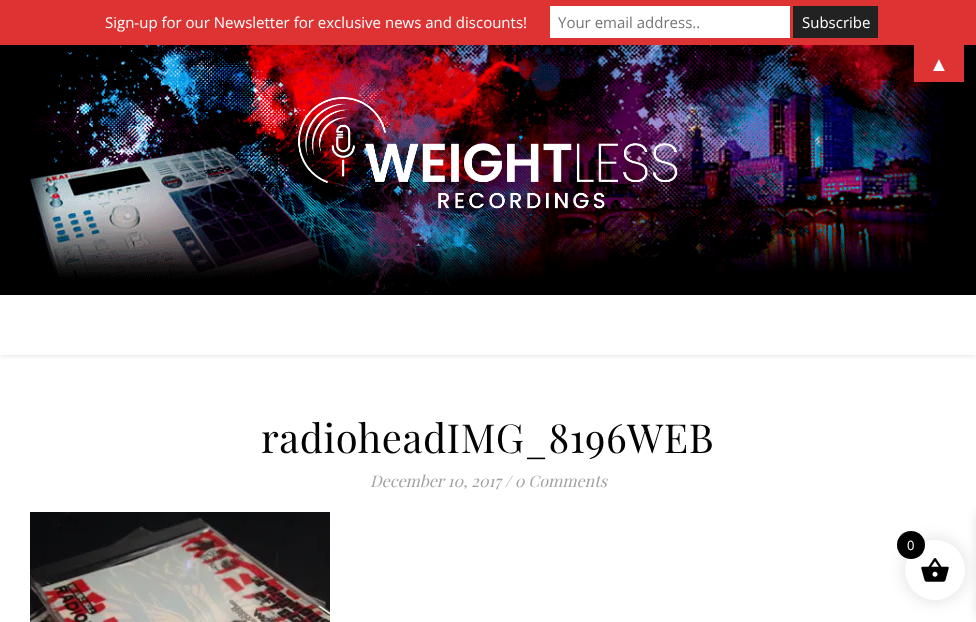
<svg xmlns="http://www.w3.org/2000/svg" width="976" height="622">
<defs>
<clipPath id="clip1"><path d="M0 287h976v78h-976zm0 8h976v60h-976z" clip-rule="evenodd"/></clipPath>
</defs>
<rect width="100%" height="100%" fill="#fff"/>
<rect width="976" height="45" fill="#d33"/>
<text x="105" y="28" style="font-family:Open Sans;font-size:15px;fill:#fff">Sign-up for our Newsletter for exclusive news and discounts!</text>
<rect x="550" y="6" width="240" height="32" fill="#fff"/>
<text x="558" y="28" style="font-family:Open Sans;font-size:15px;fill:#757575">Your email address..</text>
<rect x="793" y="6" width="85" height="32" fill="#222"/>
<text x="802" y="28" style="font-family:Open Sans;font-size:15px;fill:#fff">Subscribe</text>
<image x="0" y="45" width="976" height="250" href="media/1.png"/>
<rect x="914" y="45" width="50" height="37" fill="#d33"/>
<text x="929" y="71" style="font-family:Liberation Serif;font-size:20px;fill:#fff">▲</text>
<image x="298" y="96" width="380" height="113" href="media/2.png"/>
<g clip-path="url(#clip1)">
<rect y="296" width="976" height="60" fill="#0000001a" filter="blur(2.5px)"/>
</g>
<text x="261" y="453" style="font-family:Playfair Display;font-size:40px;letter-spacing:0.5px;fill:#030303">radioheadIMG_8196WEB</text>
<text x="370" y="487" style="font-family:Playfair Display;font-size:16px;font-style:italic;fill:#a1a1a1">December 10, 2017 / 0 Comments</text>
<image x="30" y="512" width="300" height="110" href="media/3.png"/>
<rect x="903" y="538" width="64" height="64" rx="32" fill="#0000001a" filter="blur(7.5px)"/>
<rect x="976" y="513" width="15" height="104" fill="#0000001a" filter="blur(5px)"/>
<circle cx="935" cy="570" r="30" fill="#fff"/>
<image x="921" y="558" width="28" height="24" href="media/4.png"/>
<circle cx="911" cy="545" r="14" fill="#000"/>
<text x="907" y="550" style="font-family:Open Sans;font-size:13px;fill:#fff">0</text>
</svg>
